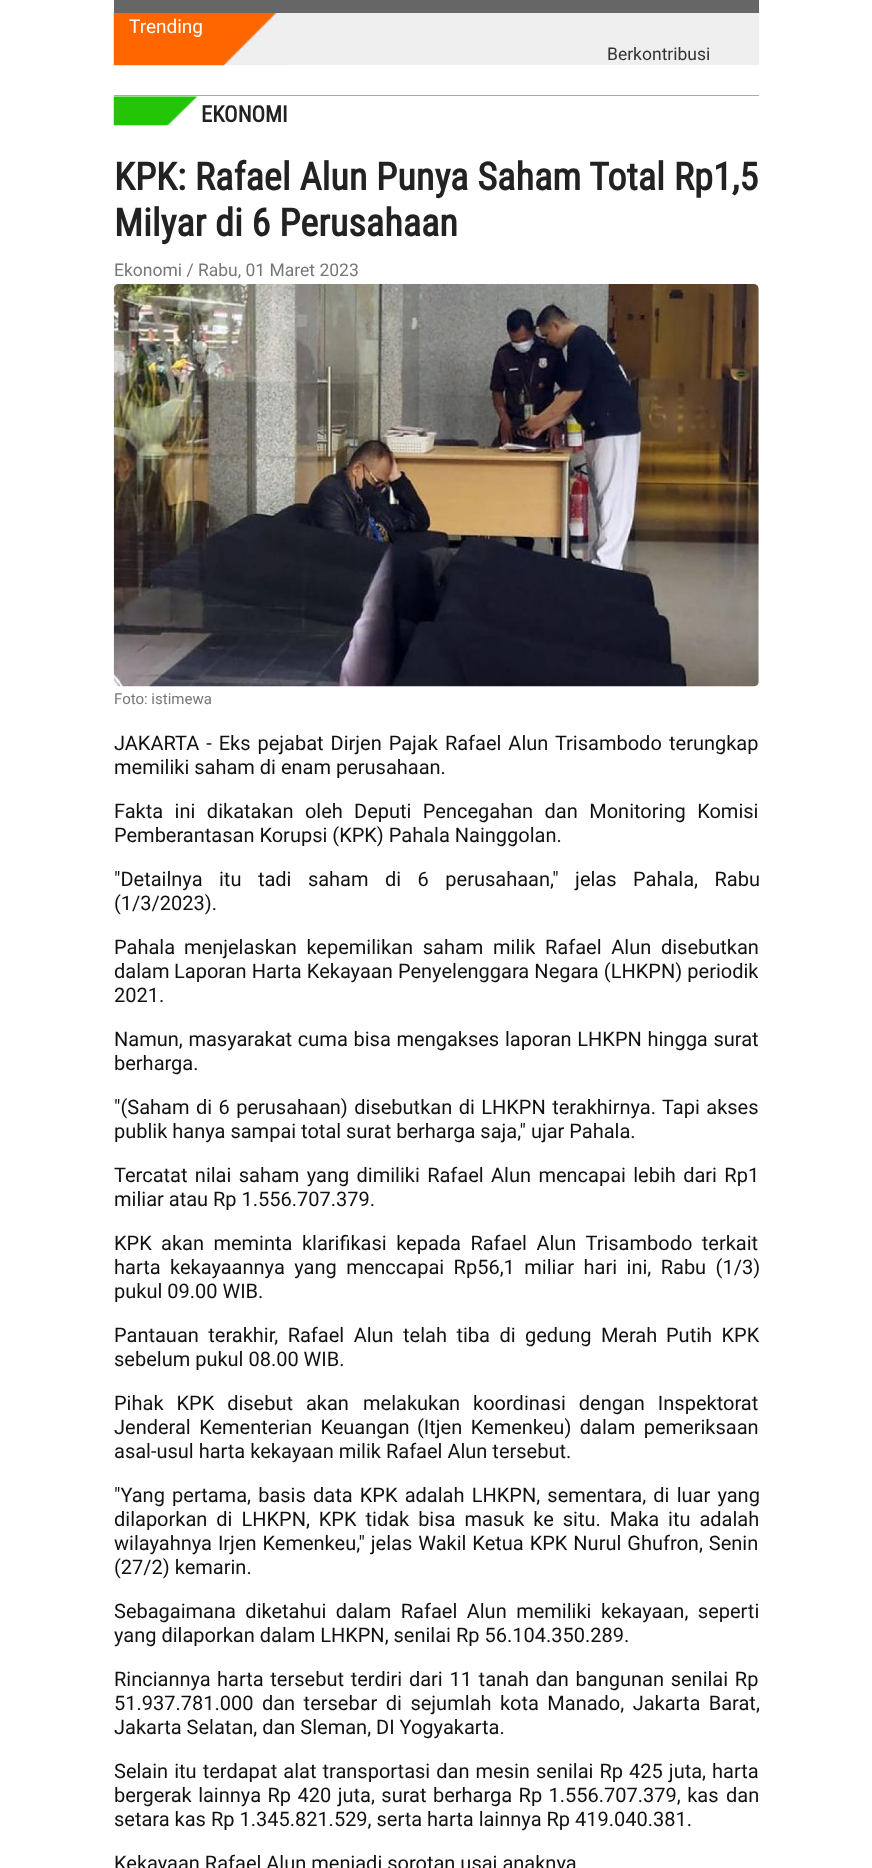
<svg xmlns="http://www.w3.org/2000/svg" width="872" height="1868">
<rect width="100%" height="100%" fill="#fff"/>
<image x="113" y="12" width="172" height="54" href="media/1.png"/>
<rect x="114" width="645" height="13" fill="#666"/>
<rect x="285" y="13" width="474" height="52" fill="#efefef"/>
<text x="129" y="33" style="font-family:Roboto;font-size:19px;fill:#fff">Trending</text>
<text x="607" y="60" style="font-family:Roboto;font-size:17.5px;fill:#333">Berkontribusi</text>
<image x="113" y="96" width="85" height="30" href="media/2.png"/>
<rect x="114" y="95" width="645" height="1" fill="#aaa"/>
<text x="201" y="122" style="font-family:Roboto Condensed;font-size:22.5px;font-weight:bold;fill:#222">EKONOMI</text>
<text x="114" y="190" style="font-family:Roboto Condensed;font-size:38.3px;font-weight:bold;fill:#222">KPK: Rafael Alun Punya Saham Total Rp1,5</text>
<text x="114" y="236" style="font-family:Roboto Condensed;font-size:38.3px;font-weight:bold;fill:#222">Milyar di 6 Perusahaan</text>
<text x="114" y="276" style="font-family:Roboto;font-size:17.5px;fill:#777">Ekonomi / Rabu, 01 Maret 2023</text>
<image x="113" y="284" width="646" height="403" href="media/3.png"/>
<text x="114" y="704" style="font-family:Roboto;font-size:15px;fill:#777">Foto: istimewa</text>
<text x="114" y="750" word-spacing="2" style="font-family:Roboto;font-size:20px;fill:#111">JAKARTA - Eks pejabat Dirjen Pajak Rafael Alun Trisambodo</text>
<text x="669" y="750" style="font-family:Roboto;font-size:20px;fill:#111">terungkap</text>
<text x="114" y="774" style="font-family:Roboto;font-size:20px;fill:#111">memiliki saham di enam perusahaan.</text>
<text x="114" y="818" word-spacing="6.5" style="font-family:Roboto;font-size:20px;fill:#111">Fakta ini dikatakan oleh</text>
<text x="354" y="818" word-spacing="6.5" style="font-family:Roboto;font-size:20px;fill:#111">Deputi Pencegahan dan Monitoring Komisi</text>
<text x="114" y="842" style="font-family:Roboto;font-size:20px;fill:#111">Pemberantasan Korupsi (KPK) Pahala Nainggolan.</text>
<text x="114" y="886" word-spacing="11.5" style="font-family:Roboto;font-size:20px;fill:#111">"Detailnya itu tadi saham di 6 perusahaan," jelas Pahala, Rabu</text>
<text x="114" y="910" style="font-family:Roboto;font-size:20px;fill:#111">(1/3/2023).</text>
<text x="114" y="954" style="font-family:Roboto;font-size:20px;fill:#111">Pahala</text>
<text x="184" y="954" word-spacing="4.75" style="font-family:Roboto;font-size:20px;fill:#111">menjelaskan kepemilikan saham milik Rafael Alun disebutkan</text>
<text x="114" y="978" style="font-family:Roboto;font-size:20px;fill:#111">dalam</text>
<text x="174" y="978" word-spacing="0.25" style="font-family:Roboto;font-size:20px;fill:#111">Laporan Harta Kekayaan Penyelenggara Negara (LHKPN) periodik</text>
<text x="114" y="1002" style="font-family:Roboto;font-size:20px;fill:#111">2021.</text>
<text x="114" y="1046" word-spacing="0.75" style="font-family:Roboto;font-size:20px;fill:#111">Namun, masyarakat cuma bisa mengakses laporan LHKPN hingga surat</text>
<text x="114" y="1070" style="font-family:Roboto;font-size:20px;fill:#111">berharga.</text>
<text x="114" y="1114" word-spacing="1.5" style="font-family:Roboto;font-size:20px;fill:#111">"(Saham di 6 perusahaan) disebutkan di LHKPN terakhirnya. Tapi akses</text>
<text x="114" y="1138" style="font-family:Roboto;font-size:20px;fill:#111">publik hanya sampai total surat berharga saja," ujar Pahala.</text>
<text x="114" y="1182" word-spacing="2.4" style="font-family:Roboto;font-size:20px;fill:#111">Tercatat nilai saham yang dimiliki Rafael Alun mencapai lebih dari Rp1</text>
<text x="114" y="1206" style="font-family:Roboto;font-size:20px;fill:#111">miliar atau Rp 1.556.707.379.</text>
<text x="114" y="1250" style="font-family:Roboto;font-size:20px;fill:#111">KPK</text>
<text x="161" y="1250" word-spacing="4.5" style="font-family:Roboto;font-size:20px;fill:#111">akan meminta klarifikasi kepada Rafael Alun Trisambodo terkait</text>
<text x="114" y="1274" style="font-family:Roboto;font-size:20px;fill:#111">harta</text>
<text x="170" y="1274" word-spacing="4.5" style="font-family:Roboto;font-size:20px;fill:#111">kekayaannya yang menccapai Rp56,1 miliar hari ini, Rabu (1/3)</text>
<text x="114" y="1298" style="font-family:Roboto;font-size:20px;fill:#111">pukul 09.00 WIB.</text>
<text x="114" y="1342" word-spacing="4.5" style="font-family:Roboto;font-size:20px;fill:#111">Pantauan terakhir, Rafael Alun telah tiba di gedung Merah</text>
<text x="666" y="1342" word-spacing="4.5" style="font-family:Roboto;font-size:20px;fill:#111">Putih KPK</text>
<text x="114" y="1366" style="font-family:Roboto;font-size:20px;fill:#111">sebelum pukul 08.00 WIB.</text>
<text x="114" y="1410" word-spacing="8" style="font-family:Roboto;font-size:20px;fill:#111">Pihak KPK disebut akan</text>
<text x="363" y="1410" word-spacing="8" style="font-family:Roboto;font-size:20px;fill:#111">melakukan koordinasi dengan Inspektorat</text>
<text x="114" y="1434" word-spacing="3.5" style="font-family:Roboto;font-size:20px;fill:#111">Jenderal Kementerian Keuangan</text>
<text x="417" y="1434" word-spacing="3.5" style="font-family:Roboto;font-size:20px;fill:#111">(Itjen Kemenkeu) dalam pemeriksaan</text>
<text x="114" y="1458" style="font-family:Roboto;font-size:20px;fill:#111">asal-usul harta kekayaan milik Rafael Alun tersebut.</text>
<text x="114" y="1502" word-spacing="2.25" style="font-family:Roboto;font-size:20px;fill:#111">"Yang pertama, basis data KPK adalah LHKPN, sementara, di luar yang</text>
<text x="114" y="1526" word-spacing="4" style="font-family:Roboto;font-size:20px;fill:#111">dilaporkan di LHKPN, KPK tidak bisa masuk ke situ. Maka itu adalah</text>
<text x="114" y="1550" word-spacing="1" style="font-family:Roboto;font-size:20px;fill:#111">wilayahnya Irjen Kemenkeu," jelas Wakil Ketua KPK Nurul Ghufron, Senin</text>
<text x="114" y="1574" style="font-family:Roboto;font-size:20px;fill:#111">(27/2) kemarin.</text>
<text x="114" y="1618" word-spacing="4.5" style="font-family:Roboto;font-size:20px;fill:#111">Sebagaimana diketahui dalam Rafael Alun memiliki kekayaan, seperti</text>
<text x="114" y="1642" style="font-family:Roboto;font-size:20px;fill:#111">yang dilaporkan dalam LHKPN, senilai Rp 56.104.350.289.</text>
<text x="114" y="1686" style="font-family:Roboto;font-size:20px;fill:#111">Rinciannya</text>
<text x="217" y="1686" word-spacing="1.75" style="font-family:Roboto;font-size:20px;fill:#111">harta tersebut terdiri dari 11 tanah dan bangunan senilai Rp</text>
<text x="114" y="1710" word-spacing="3.5" style="font-family:Roboto;font-size:20px;fill:#111">51.937.781.000 dan tersebar di sejumlah kota Manado, Jakarta Barat,</text>
<text x="114" y="1734" style="font-family:Roboto;font-size:20px;fill:#111">Jakarta Selatan, dan Sleman, DI Yogyakarta.</text>
<text x="114" y="1778" word-spacing="1.1" style="font-family:Roboto;font-size:20px;fill:#111">Selain itu terdapat alat transportasi dan mesin senilai Rp 425 juta,</text>
<text x="712" y="1778" style="font-family:Roboto;font-size:20px;fill:#111">harta</text>
<text x="114" y="1802" word-spacing="1.5" style="font-family:Roboto;font-size:20px;fill:#111">bergerak lainnya Rp 420 juta, surat berharga Rp 1.556.707.379, kas</text>
<text x="726" y="1802" style="font-family:Roboto;font-size:20px;fill:#111">dan</text>
<text x="114" y="1826" style="font-family:Roboto;font-size:20px;fill:#111">setara kas Rp 1.345.821.529, serta harta lainnya Rp 419.040.381.</text>
<text x="114" y="1870" style="font-family:Roboto;font-size:20px;fill:#111">Kekayaan Rafael Alun menjadi sorotan usai anaknya</text>
</svg>
